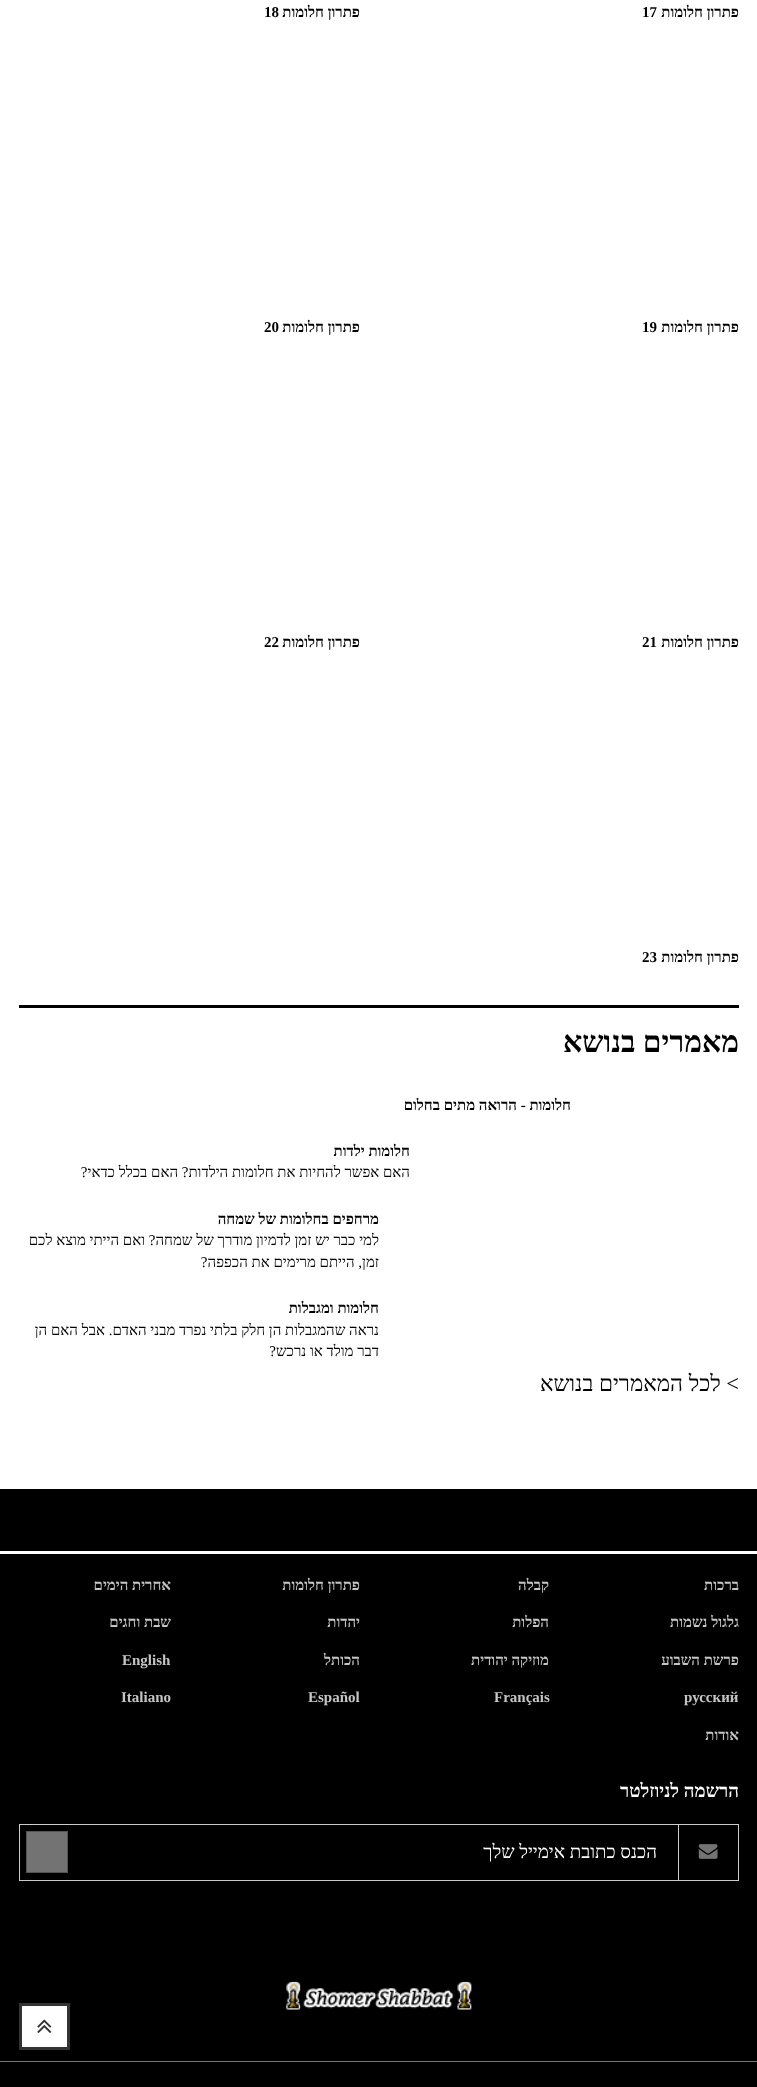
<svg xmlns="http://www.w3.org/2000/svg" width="757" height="2087">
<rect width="100%" height="100%" fill="#fff"/>
<text x="739" y="17" style="font-family:Liberation Serif;font-size:15px;font-weight:bold;direction:rtl;fill:#000">פתרון חלומות</text>
<text x="642" y="17" style="font-family:Liberation Serif;font-size:15px;font-weight:bold;fill:#000">17</text>
<text x="360" y="17" style="font-family:Liberation Serif;font-size:15px;font-weight:bold;direction:rtl;fill:#000">פתרון חלומות</text>
<text x="264" y="17" style="font-family:Liberation Serif;font-size:15px;font-weight:bold;fill:#000">18</text>
<text x="739" y="332" style="font-family:Liberation Serif;font-size:15px;font-weight:bold;direction:rtl;fill:#000">פתרון חלומות</text>
<text x="642" y="332" style="font-family:Liberation Serif;font-size:15px;font-weight:bold;fill:#000">19</text>
<text x="360" y="332" style="font-family:Liberation Serif;font-size:15px;font-weight:bold;direction:rtl;fill:#000">פתרון חלומות</text>
<text x="264" y="332" style="font-family:Liberation Serif;font-size:15px;font-weight:bold;fill:#000">20</text>
<text x="739" y="647" style="font-family:Liberation Serif;font-size:15px;font-weight:bold;direction:rtl;fill:#000">פתרון חלומות</text>
<text x="642" y="647" style="font-family:Liberation Serif;font-size:15px;font-weight:bold;fill:#000">21</text>
<text x="360" y="647" style="font-family:Liberation Serif;font-size:15px;font-weight:bold;direction:rtl;fill:#000">פתרון חלומות</text>
<text x="264" y="647" style="font-family:Liberation Serif;font-size:15px;font-weight:bold;fill:#000">22</text>
<text x="739" y="962" style="font-family:Liberation Serif;font-size:15px;font-weight:bold;direction:rtl;fill:#000">פתרון חלומות</text>
<text x="642" y="962" style="font-family:Liberation Serif;font-size:15px;font-weight:bold;fill:#000">23</text>
<rect x="19" y="1005" width="720" height="3" fill="#000"/>
<text x="739" y="1052" style="font-family:Liberation Serif;font-size:30px;font-weight:bold;direction:rtl;fill:#000">מאמרים בנושא</text>
<text x="571" y="1110" style="font-family:Liberation Serif;font-size:15px;font-weight:bold;direction:rtl;fill:#000">חלומות - הרואה מתים בחלום</text>
<text x="410" y="1156" style="font-family:Liberation Serif;font-size:15px;font-weight:bold;direction:rtl;fill:#000">חלומות ילדות</text>
<text x="410" y="1177" style="font-family:Liberation Serif;font-size:15px;direction:rtl;fill:#000">האם אפשר להחיות את חלומות הילדות? האם בכלל כדאי?</text>
<text x="379" y="1224" style="font-family:Liberation Serif;font-size:15px;font-weight:bold;direction:rtl;fill:#000">מרחפים בחלומות של שמחה</text>
<text x="379" y="1245" style="font-family:Liberation Serif;font-size:15px;direction:rtl;fill:#000">למי כבר יש זמן לדמיון מודרך של שמחה? ואם הייתי מוצא לכם</text>
<text x="379" y="1267" style="font-family:Liberation Serif;font-size:15px;direction:rtl;fill:#000">זמן, הייתם מרימים את הכפפה?</text>
<text x="379" y="1313" style="font-family:Liberation Serif;font-size:15px;font-weight:bold;direction:rtl;fill:#000">חלומות ומגבלות</text>
<text x="379" y="1335" style="font-family:Liberation Serif;font-size:15px;direction:rtl;fill:#000">נראה שהמגבלות הן חלק בלתי נפרד מבני האדם. אבל האם הן</text>
<text x="379" y="1356" style="font-family:Liberation Serif;font-size:15px;direction:rtl;fill:#000">דבר מולד או נרכש?</text>
<text x="739" y="1391" style="font-family:Liberation Serif;font-size:22.5px;direction:rtl;fill:#000">&gt; לכל המאמרים בנושא</text>
<rect y="1489" width="757" height="598" fill="#000"/>
<rect y="2061" width="757" height="1" fill="#737373"/>
<rect y="1551" width="757" height="3" fill="#fff"/>
<text x="739" y="1590" style="font-family:Liberation Serif;font-size:15px;font-weight:bold;direction:rtl;fill:#c5c5c5">ברכות</text>
<text x="549" y="1590" style="font-family:Liberation Serif;font-size:15px;font-weight:bold;direction:rtl;fill:#c5c5c5">קבלה</text>
<text x="360" y="1590" style="font-family:Liberation Serif;font-size:15px;font-weight:bold;direction:rtl;fill:#c5c5c5">פתרון חלומות</text>
<text x="171" y="1590" style="font-family:Liberation Serif;font-size:15px;font-weight:bold;direction:rtl;fill:#c5c5c5">אחרית הימים</text>
<text x="739" y="1627" style="font-family:Liberation Serif;font-size:15px;font-weight:bold;direction:rtl;fill:#c5c5c5">גלגול נשמות</text>
<text x="549" y="1627" style="font-family:Liberation Serif;font-size:15px;font-weight:bold;direction:rtl;fill:#c5c5c5">הפלות</text>
<text x="360" y="1627" style="font-family:Liberation Serif;font-size:15px;font-weight:bold;direction:rtl;fill:#c5c5c5">יהדות</text>
<text x="171" y="1627" style="font-family:Liberation Serif;font-size:15px;font-weight:bold;direction:rtl;fill:#c5c5c5">שבת וחגים</text>
<text x="739" y="1665" style="font-family:Liberation Serif;font-size:15px;font-weight:bold;direction:rtl;fill:#c5c5c5">פרשת השבוע</text>
<text x="549" y="1665" style="font-family:Liberation Serif;font-size:15px;font-weight:bold;direction:rtl;fill:#c5c5c5">מוזיקה יהודית</text>
<text x="360" y="1665" style="font-family:Liberation Serif;font-size:15px;font-weight:bold;direction:rtl;fill:#c5c5c5">הכותל</text>
<text x="122" y="1665" style="font-family:Liberation Serif;font-size:15px;font-weight:bold;fill:#c5c5c5">English</text>
<text x="684" y="1702" style="font-family:Liberation Serif;font-size:15px;font-weight:bold;fill:#c5c5c5">русский</text>
<text x="494" y="1702" style="font-family:Liberation Serif;font-size:15px;font-weight:bold;fill:#c5c5c5">Français</text>
<text x="308" y="1702" style="font-family:Liberation Serif;font-size:15px;font-weight:bold;fill:#c5c5c5">Español</text>
<text x="121" y="1702" style="font-family:Liberation Serif;font-size:15px;font-weight:bold;fill:#c5c5c5">Italiano</text>
<text x="739" y="1740" style="font-family:Liberation Serif;font-size:15px;font-weight:bold;direction:rtl;fill:#c5c5c5">אודות</text>
<text x="739" y="1797" style="font-family:Liberation Serif;font-size:18.75px;font-weight:bold;direction:rtl;fill:#fff">הרשמה לניוזלטר</text>
<rect x="679" y="1824" width="60" height="1" fill="#ccc"/>
<rect x="738" y="1824" width="1" height="57" fill="#ccc"/>
<rect x="679" y="1880" width="60" height="1" fill="#ccc"/>
<image x="698" y="1844" width="20" height="15" href="media/1.png"/>
<rect x="19" y="1824" width="660" height="1" fill="#ccc"/>
<rect x="19" y="1880" width="55" height="1" fill="#ccc"/>
<rect x="19" y="1824" width="1" height="57" fill="#ccc"/>
<rect x="26.5" y="1831.5" width="41" height="41" fill="#737373" stroke="#555"/>
<rect x="678" y="1824" width="1" height="57" fill="#ccc"/>
<rect x="74" y="1880" width="605" height="1" fill="#ccc"/>
<text x="657" y="1858" style="font-family:Liberation Serif;font-size:18.75px;direction:rtl;fill:#fff">הכנס כתובת אימייל שלך</text>
<image x="286" y="1981" width="186" height="29" href="media/2.png"/>
<rect x="20.5" y="2004.5" width="48" height="44" fill="#fff" stroke="#333" stroke-width="3"/>
<image x="37" y="2019" width="15" height="14" href="media/3.png"/>
</svg>
